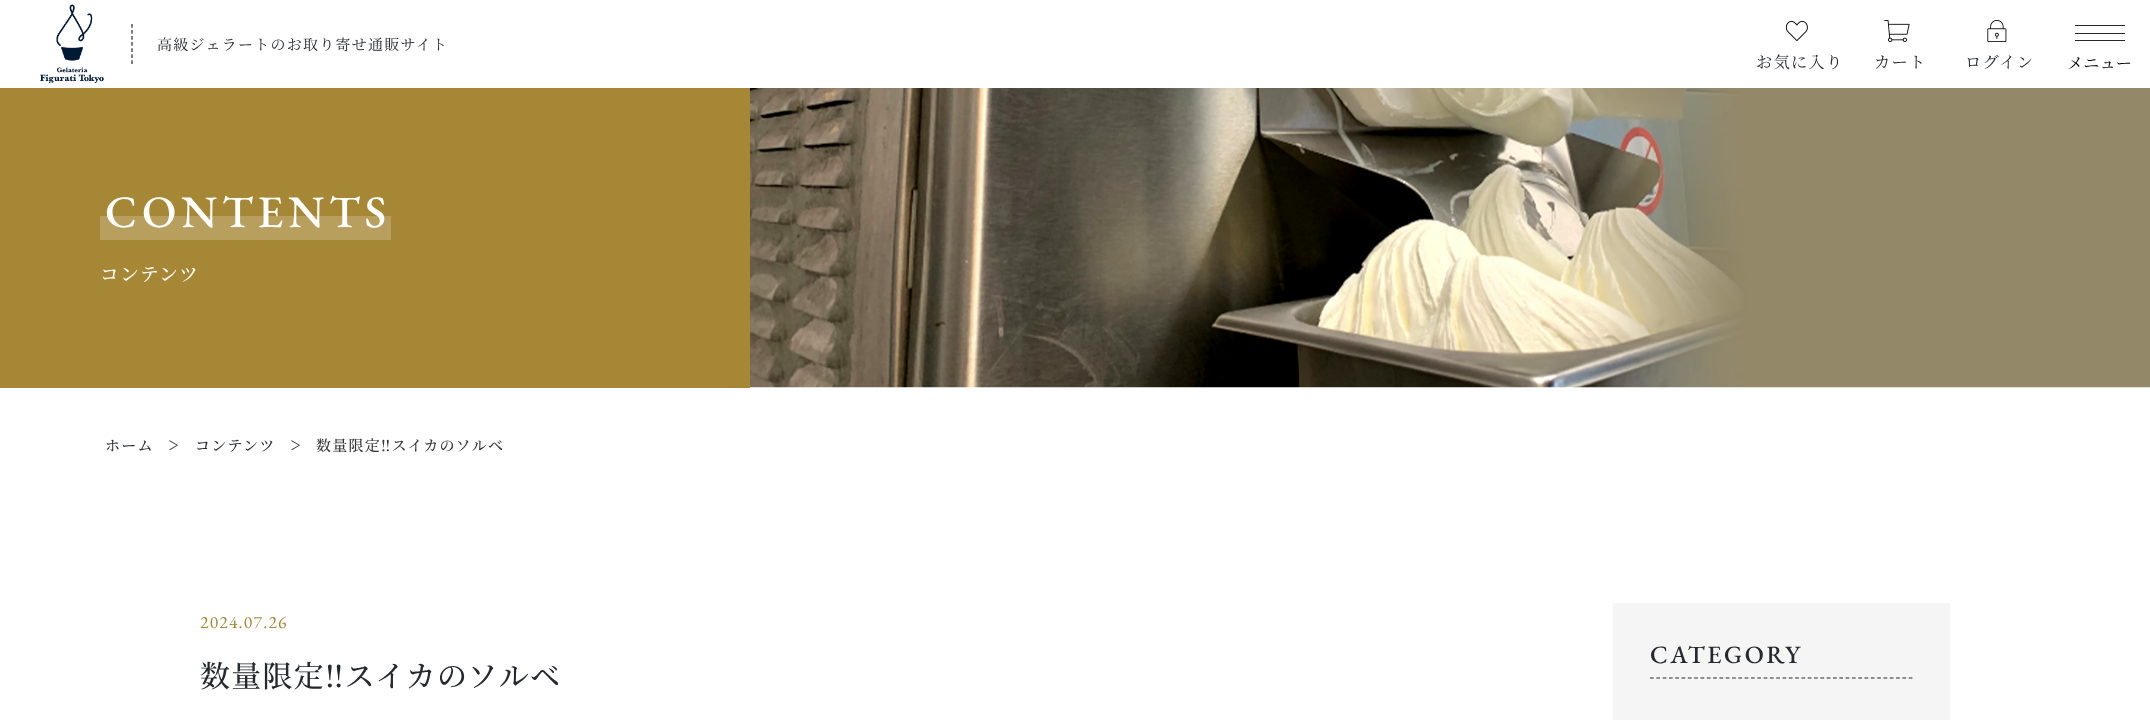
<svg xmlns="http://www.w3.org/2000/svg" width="2150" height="720">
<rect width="100%" height="100%" fill="#fff"/>
<image x="40" y="4" width="64" height="80" href="media/1.png"/>
<path d="M132 24v40" fill="none" stroke="#25282d" stroke-width="1.2" stroke-dasharray="3.75 2.29"/>
<text x="157" y="50" style="font-family:Noto Serif JP;font-size:15px;letter-spacing:1.25px;fill:#25282d">高級ジェラートのお取り寄せ通販サイト</text>
<image x="1785" y="20" width="23" height="21" href="media/2.png"/>
<text x="1756" y="68" style="font-family:Noto Serif JP;font-size:16.25px;letter-spacing:1.25px;fill:#25282d">お気に入り</text>
<image x="1884" y="20" width="26" height="22" href="media/3.png"/>
<text x="1874" y="68" style="font-family:Noto Serif JP;font-size:16.25px;letter-spacing:1.25px;fill:#25282d">カート</text>
<image x="1987" y="20" width="20" height="22" href="media/4.png"/>
<text x="1965" y="68" style="font-family:Noto Serif JP;font-size:16.25px;letter-spacing:1.25px;fill:#25282d">ログイン</text>
<rect x="2075" y="25" width="50" height="1" fill="#25282d"/>
<rect x="2075" y="33" width="50" height="1" fill="#25282d"/>
<rect x="2075" y="40" width="50" height="1" fill="#25282d"/>
<text x="2067" y="69" style="font-family:Noto Serif JP;font-size:16.25px;fill:#000">メニュー</text>
<rect y="88" width="750" height="300" fill="#a68735"/>
<rect x="100" y="216" width="291" height="24" fill="#b89f5d"/>
<text x="105" y="227" style="font-family:EB Garamond;font-size:45px;font-weight:500;letter-spacing:5px;fill:#fff">CONTENTS</text>
<text x="100" y="281" style="font-family:Noto Serif JP;font-size:18.75px;font-weight:500;letter-spacing:1.25px;fill:#fff">コンテンツ</text>
<image x="750" y="88" width="1400" height="300" href="media/5.png"/>
<text x="105" y="451" style="font-family:Noto Serif JP;font-size:15px;font-weight:500;letter-spacing:1.25px;fill:#25282d">ホーム</text>
<text x="168" y="452" style="font-family:Noto Serif JP;font-size:18.75px;letter-spacing:1.25px;fill:#25282d">&gt;</text>
<text x="195" y="451" style="font-family:Noto Serif JP;font-size:15px;font-weight:500;letter-spacing:1.25px;fill:#25282d">コンテンツ</text>
<text x="290" y="452" style="font-family:Noto Serif JP;font-size:18.75px;letter-spacing:1.25px;fill:#25282d">&gt;</text>
<text x="316" y="451" style="font-family:Noto Serif JP;font-size:15px;font-weight:500;letter-spacing:1.25px;fill:#333">数量限定‼スイカのソルベ</text>
<text x="200" y="628" style="font-family:EB Garamond;font-size:17.5px;letter-spacing:1.25px;fill:#a68735">2024.07.26</text>
<text x="200" y="687" style="font-family:Noto Serif JP;font-size:30px;font-weight:500;letter-spacing:1.25px;fill:#25282d">数量限定‼スイカのソルベ</text>
<rect x="1613" y="603" width="337" height="117" fill="#f5f5f5"/>
<path d="M1650 678h262.5" fill="none" stroke="#25282d" stroke-width="1.2" stroke-dasharray="3.75 2.56"/>
<text x="1650" y="663" style="font-family:EB Garamond;font-size:25px;font-weight:500;letter-spacing:2.5px;fill:#25282d">CATEGORY</text>
</svg>
